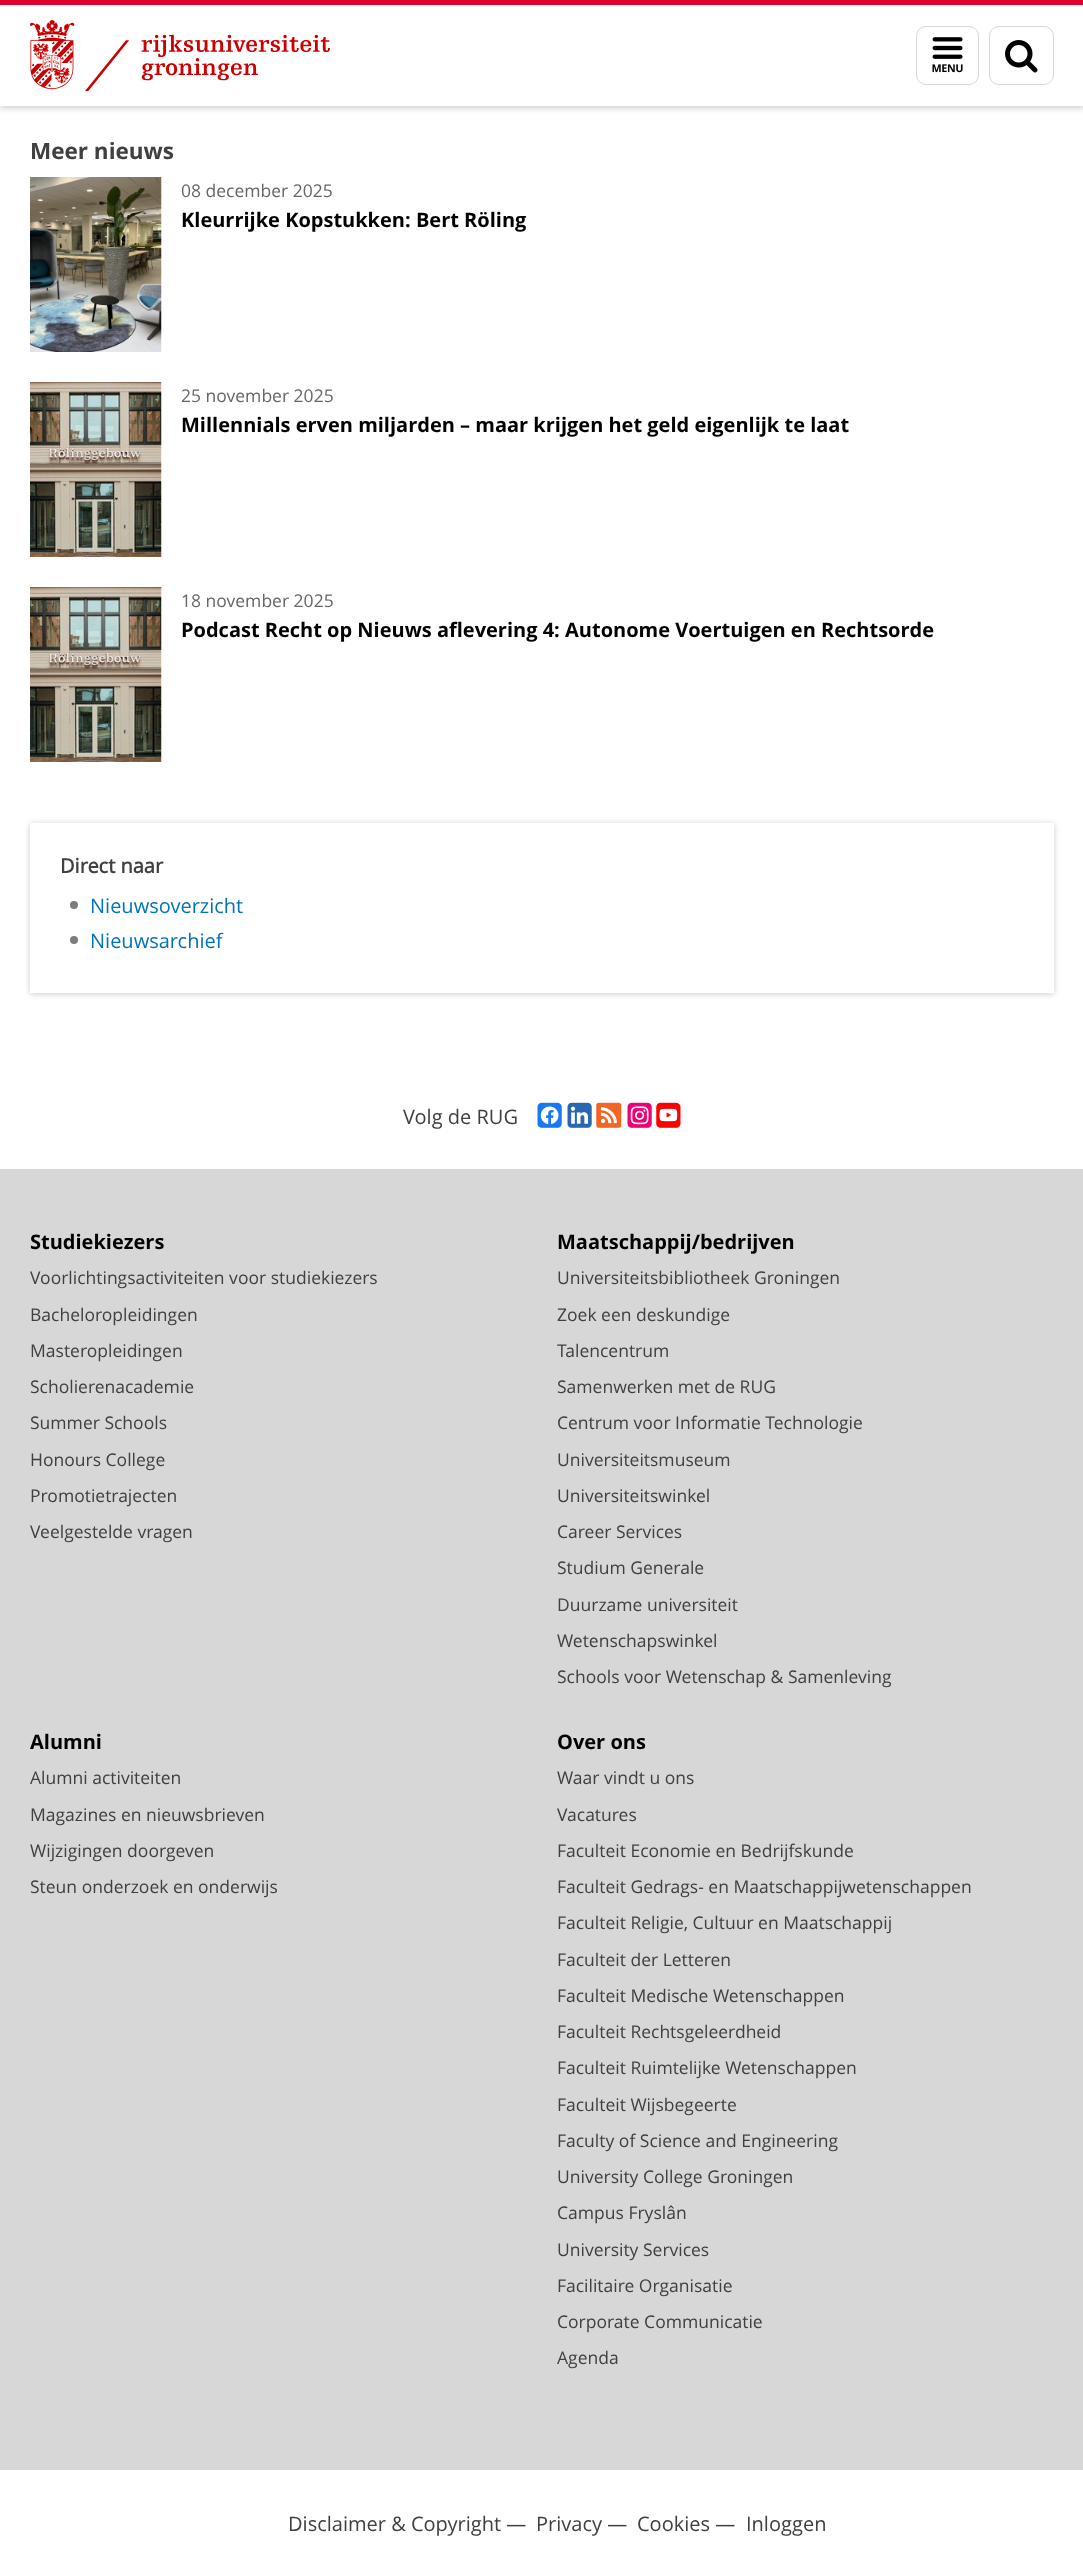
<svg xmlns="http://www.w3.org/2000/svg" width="1083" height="2574">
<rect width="100%" height="100%" fill="#fff"/>
<rect y="1" width="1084" height="107" fill="#00000033" filter="blur(3px)"/>
<rect y="5" width="1083" height="101" fill="#fff"/>
<rect width="1083" height="5" fill="#dc002d"/>
<image x="30" y="20" width="300" height="71" href="media/1.png"/>
<rect x="916.5" y="26.5" width="62" height="58" rx="9.5" fill="none" stroke="#d7d7d7"/>
<image x="932" y="37" width="31" height="36" href="media/2.png"/>
<rect x="989.5" y="26.5" width="64" height="58" rx="9.5" fill="none" stroke="#d7d7d7"/>
<image x="1005" y="40" width="33" height="33" href="media/3.png"/>
<text x="30" y="159" style="font-family:Open Sans;font-size:22.5px;font-weight:bold;fill:#404040">Meer nieuws</text>
<image x="30" y="177" width="132" height="175" href="media/4.png"/>
<text x="181" y="197" style="font-family:Open Sans;font-size:17.5px;fill:#666">08 december 2025</text>
<text x="181" y="227" style="font-family:Open Sans;font-size:20px;font-weight:bold;fill:#000">Kleurrijke Kopstukken: Bert Röling</text>
<image x="30" y="382" width="132" height="175" href="media/5.png"/>
<text x="181" y="402" style="font-family:Open Sans;font-size:17.5px;fill:#666">25 november 2025</text>
<text x="181" y="432" style="font-family:Open Sans;font-size:20px;font-weight:bold;fill:#000">Millennials erven miljarden – maar krijgen het geld eigenlijk te laat</text>
<image x="30" y="587" width="132" height="175" href="media/6.png"/>
<text x="181" y="607" style="font-family:Open Sans;font-size:17.5px;fill:#666">18 november 2025</text>
<text x="181" y="637" style="font-family:Open Sans;font-size:20px;font-weight:bold;fill:#000">Podcast Recht op Nieuws aflevering 4: Autonome Voertuigen en Rechtsorde</text>
<rect x="30" y="824" width="1024" height="170" fill="#00000033" filter="blur(3px)"/>
<rect x="30" y="823" width="1024" height="170" fill="#fff"/>
<text x="60" y="873" style="font-family:'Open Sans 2';font-size:20px;font-weight:bold;fill:#404040">Direct naar</text>
<circle cx="74" cy="905" r="4" fill="#7d7d7d"/>
<text x="90" y="913" style="font-family:Open Sans;font-size:20px;fill:#0074b6">Nieuwsoverzicht</text>
<circle cx="74" cy="940" r="4" fill="#7d7d7d"/>
<text x="90" y="948" style="font-family:Open Sans;font-size:20px;fill:#0074b6">Nieuwsarchief</text>
<text x="403" y="1124" style="font-family:Open Sans;font-size:20px;fill:#404040">Volg de RUG</text>
<image x="537" y="1102" width="25" height="26" href="media/7.png"/>
<image x="567" y="1102" width="25" height="26" href="media/8.png"/>
<image x="596" y="1102" width="26" height="26" href="media/9.png"/>
<image x="627" y="1102" width="25" height="26" href="media/10.png"/>
<image x="656" y="1102" width="25" height="26" href="media/11.png"/>
<rect y="1169" width="1083" height="1301" fill="#d7d7d7"/>
<text x="30" y="1249" style="font-family:Open Sans;font-size:20px;font-weight:bold;fill:#000">Studiekiezers</text>
<text x="30" y="1284" style="font-family:Open Sans;font-size:17.5px;fill:#404040">Voorlichtingsactiviteiten voor studiekiezers</text>
<text x="30" y="1321" style="font-family:Open Sans;font-size:17.5px;fill:#404040">Bacheloropleidingen</text>
<text x="30" y="1357" style="font-family:Open Sans;font-size:17.5px;fill:#404040">Masteropleidingen</text>
<text x="30" y="1393" style="font-family:Open Sans;font-size:17.5px;fill:#404040">Scholierenacademie</text>
<text x="30" y="1429" style="font-family:Open Sans;font-size:17.5px;fill:#404040">Summer Schools</text>
<text x="30" y="1466" style="font-family:Open Sans;font-size:17.5px;fill:#404040">Honours College</text>
<text x="30" y="1502" style="font-family:Open Sans;font-size:17.5px;fill:#404040">Promotietrajecten</text>
<text x="30" y="1538" style="font-family:Open Sans;font-size:17.5px;fill:#404040">Veelgestelde vragen</text>
<text x="557" y="1249" style="font-family:Open Sans;font-size:20px;font-weight:bold;fill:#000">Maatschappij/bedrijven</text>
<text x="557" y="1284" style="font-family:Open Sans;font-size:17.5px;fill:#404040">Universiteitsbibliotheek Groningen</text>
<text x="557" y="1321" style="font-family:Open Sans;font-size:17.5px;fill:#404040">Zoek een deskundige</text>
<text x="557" y="1357" style="font-family:Open Sans;font-size:17.5px;fill:#404040">Talencentrum</text>
<text x="557" y="1393" style="font-family:Open Sans;font-size:17.5px;fill:#404040">Samenwerken met de RUG</text>
<text x="557" y="1429" style="font-family:Open Sans;font-size:17.5px;fill:#404040">Centrum voor Informatie Technologie</text>
<text x="557" y="1466" style="font-family:Open Sans;font-size:17.5px;fill:#404040">Universiteitsmuseum</text>
<text x="557" y="1502" style="font-family:Open Sans;font-size:17.5px;fill:#404040">Universiteitswinkel</text>
<text x="557" y="1538" style="font-family:Open Sans;font-size:17.5px;fill:#404040">Career Services</text>
<text x="557" y="1574" style="font-family:Open Sans;font-size:17.5px;fill:#404040">Studium Generale</text>
<text x="557" y="1611" style="font-family:Open Sans;font-size:17.5px;fill:#404040">Duurzame universiteit</text>
<text x="557" y="1647" style="font-family:Open Sans;font-size:17.5px;fill:#404040">Wetenschapswinkel</text>
<text x="557" y="1683" style="font-family:Open Sans;font-size:17.5px;fill:#404040">Schools voor Wetenschap &amp; Samenleving</text>
<text x="30" y="1749" style="font-family:Open Sans;font-size:20px;font-weight:bold;fill:#000">Alumni</text>
<text x="30" y="1784" style="font-family:Open Sans;font-size:17.5px;fill:#404040">Alumni activiteiten</text>
<text x="30" y="1821" style="font-family:Open Sans;font-size:17.5px;fill:#404040">Magazines en nieuwsbrieven</text>
<text x="30" y="1857" style="font-family:Open Sans;font-size:17.5px;fill:#404040">Wijzigingen doorgeven</text>
<text x="30" y="1893" style="font-family:Open Sans;font-size:17.5px;fill:#404040">Steun onderzoek en onderwijs</text>
<text x="557" y="1749" style="font-family:Open Sans;font-size:20px;font-weight:bold;fill:#000">Over ons</text>
<text x="557" y="1784" style="font-family:Open Sans;font-size:17.5px;fill:#404040">Waar vindt u ons</text>
<text x="557" y="1821" style="font-family:Open Sans;font-size:17.5px;fill:#404040">Vacatures</text>
<text x="557" y="1857" style="font-family:Open Sans;font-size:17.5px;fill:#404040">Faculteit Economie en Bedrijfskunde</text>
<text x="557" y="1893" style="font-family:Open Sans;font-size:17.5px;fill:#404040">Faculteit Gedrags- en Maatschappijwetenschappen</text>
<text x="557" y="1929" style="font-family:Open Sans;font-size:17.5px;fill:#404040">Faculteit Religie, Cultuur en Maatschappij</text>
<text x="557" y="1966" style="font-family:Open Sans;font-size:17.5px;fill:#404040">Faculteit der Letteren</text>
<text x="557" y="2002" style="font-family:Open Sans;font-size:17.5px;fill:#404040">Faculteit Medische Wetenschappen</text>
<text x="557" y="2038" style="font-family:Open Sans;font-size:17.5px;fill:#404040">Faculteit Rechtsgeleerdheid</text>
<text x="557" y="2074" style="font-family:Open Sans;font-size:17.5px;fill:#404040">Faculteit Ruimtelijke Wetenschappen</text>
<text x="557" y="2111" style="font-family:Open Sans;font-size:17.5px;fill:#404040">Faculteit Wijsbegeerte</text>
<text x="557" y="2147" style="font-family:Open Sans;font-size:17.5px;fill:#404040">Faculty of Science and Engineering</text>
<text x="557" y="2183" style="font-family:Open Sans;font-size:17.5px;fill:#404040">University College Groningen</text>
<text x="557" y="2219" style="font-family:Open Sans;font-size:17.5px;fill:#404040">Campus Fryslân</text>
<text x="557" y="2256" style="font-family:Open Sans;font-size:17.5px;fill:#404040">University Services</text>
<text x="557" y="2292" style="font-family:Open Sans;font-size:17.5px;fill:#404040">Facilitaire Organisatie</text>
<text x="557" y="2328" style="font-family:Open Sans;font-size:17.5px;fill:#404040">Corporate Communicatie</text>
<text x="557" y="2364" style="font-family:Open Sans;font-size:17.5px;fill:#404040">Agenda</text>
<text x="288" y="2531" style="font-family:Open Sans;font-size:20px;fill:#404040">Disclaimer &amp; Copyright —</text>
<text x="536" y="2531" style="font-family:Open Sans;font-size:20px;fill:#404040">Privacy —</text>
<text x="637" y="2531" style="font-family:Open Sans;font-size:20px;fill:#404040">Cookies —</text>
<text x="746" y="2531" style="font-family:Open Sans;font-size:20px;fill:#404040">Inloggen</text>
</svg>
